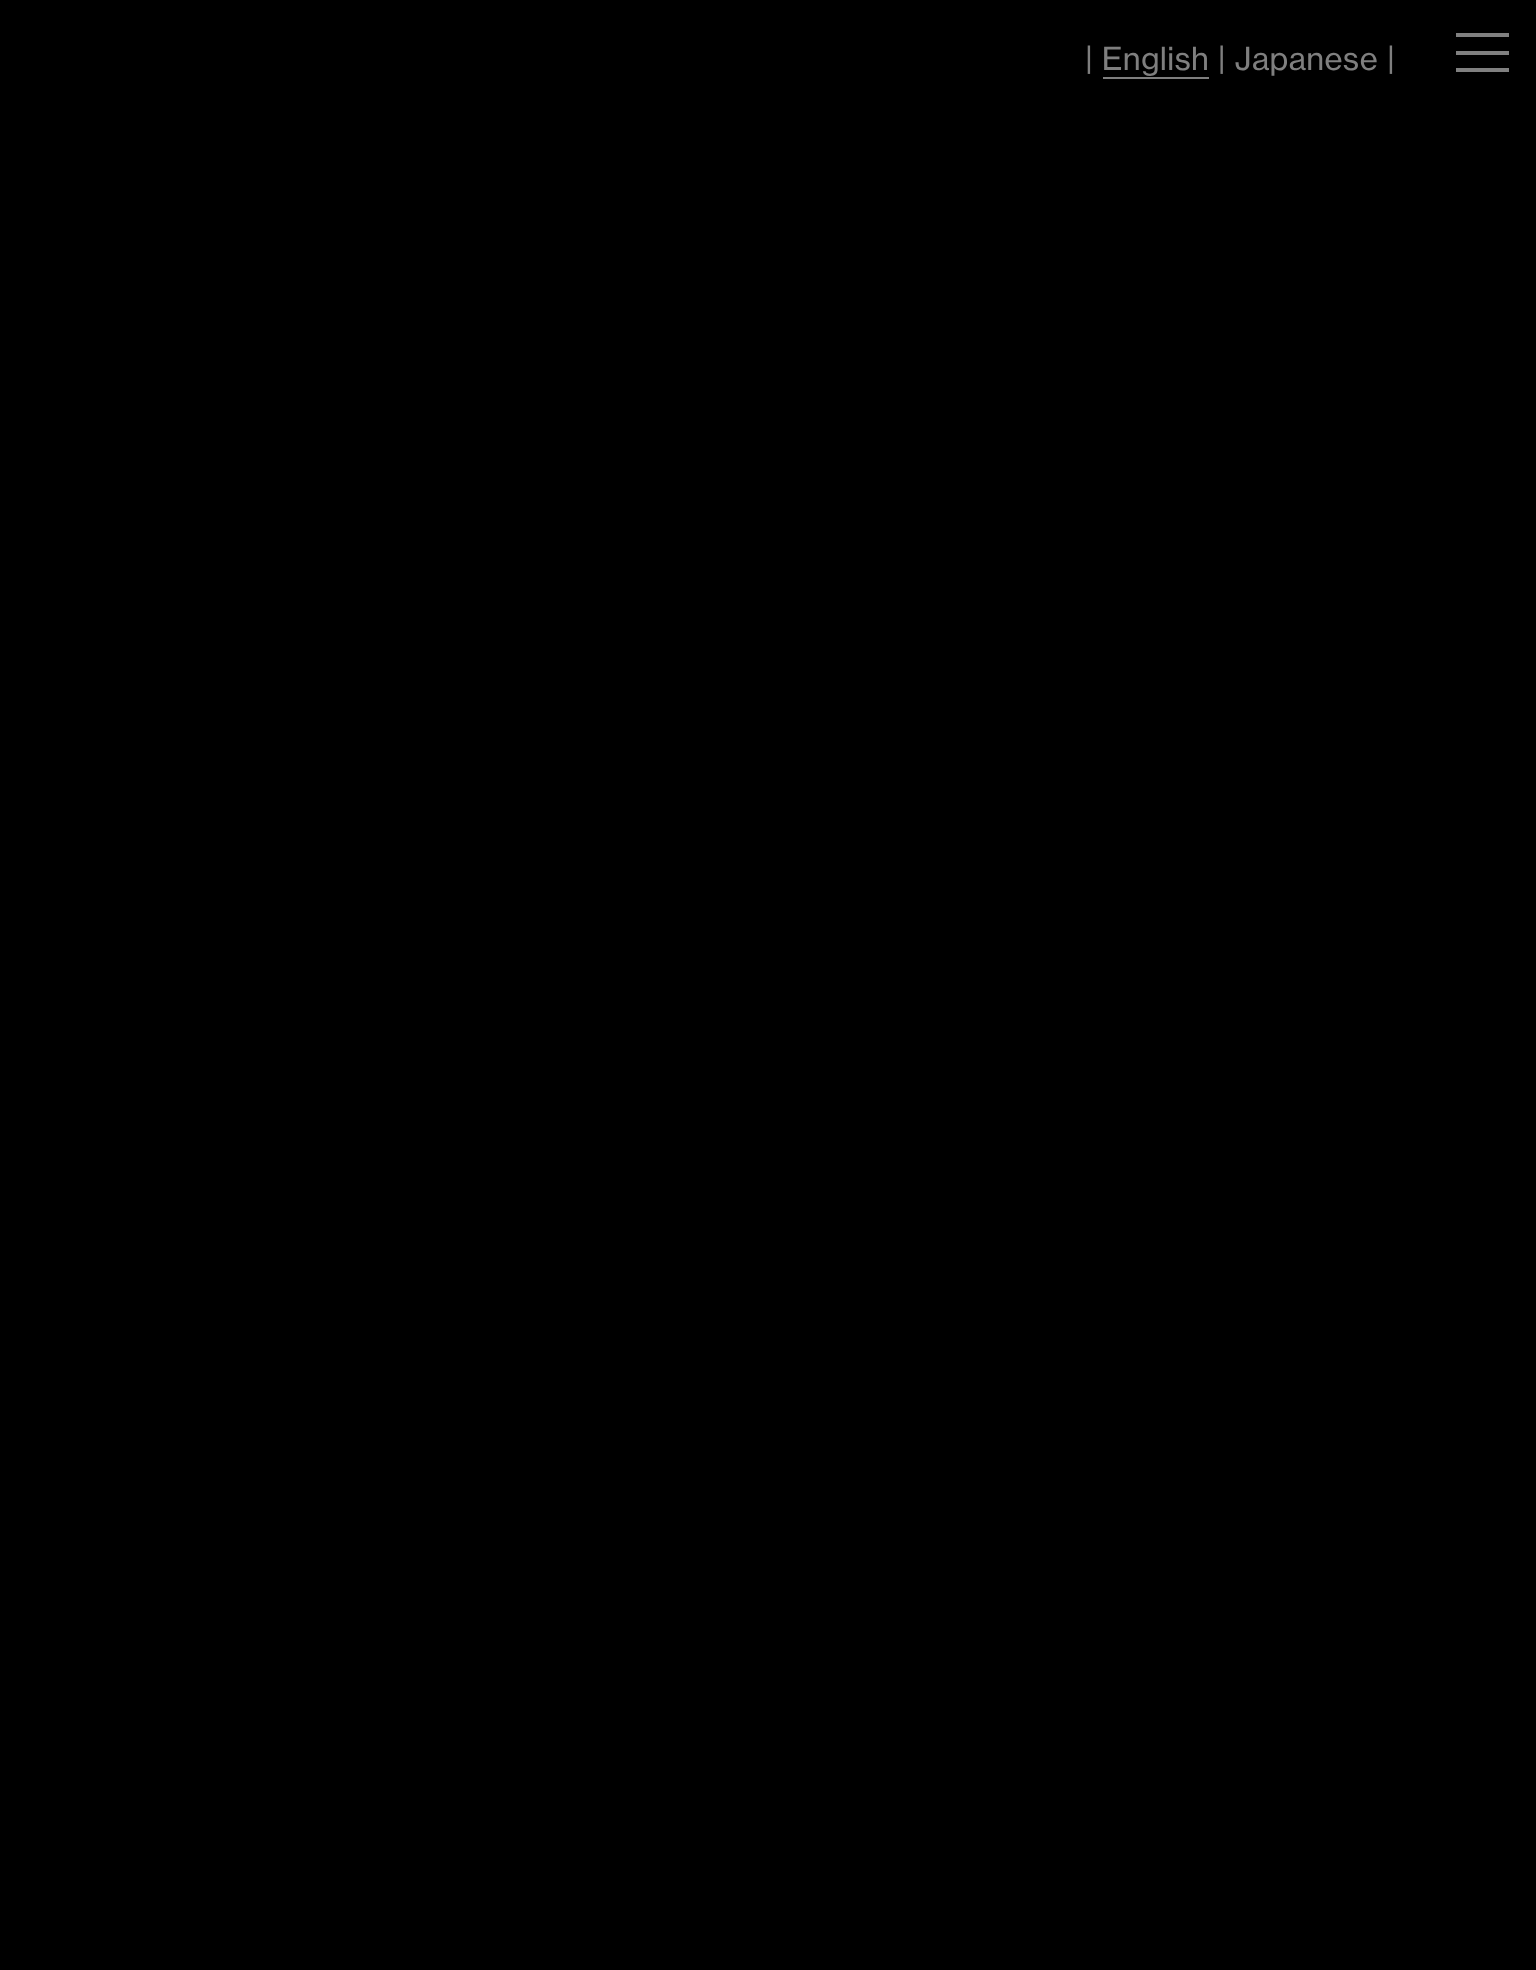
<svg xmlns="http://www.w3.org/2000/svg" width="1536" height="1970">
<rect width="100%" height="100%" fill="#000"/>
<text x="1085" y="70" style="font-family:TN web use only;font-size:31.25px;letter-spacing:0.3px;fill:#7f7f7f">| English | Japanese</text>
<text x="1387" y="70" style="font-family:TN web use only;font-size:31.25px;letter-spacing:0.3px;fill:#7f7f7f">|</text>
<rect x="1103" y="77" width="106" height="2" fill="#7f7f7f"/>
<rect x="1456" y="33" width="53" height="4" fill="#808080"/>
<rect x="1456" y="51" width="53" height="4" fill="#808080"/>
<rect x="1456" y="68" width="53" height="4" fill="#808080"/>
</svg>
